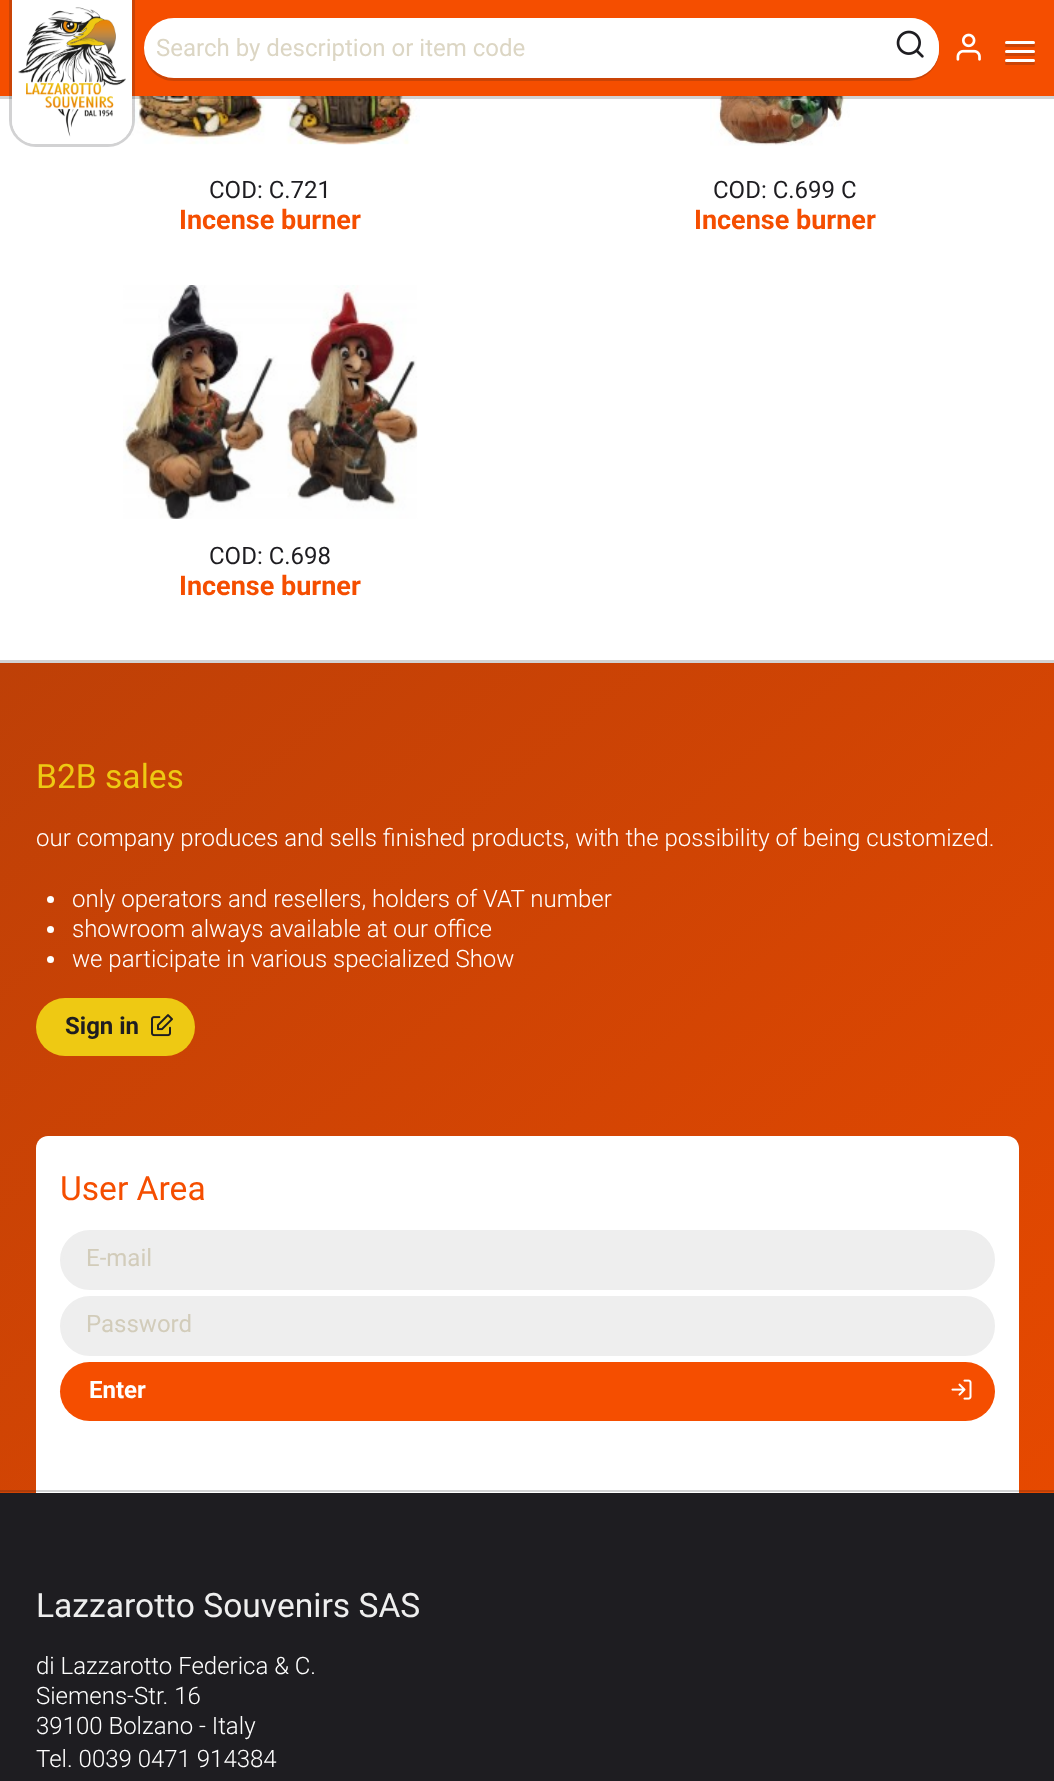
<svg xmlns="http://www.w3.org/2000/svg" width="1054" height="1781">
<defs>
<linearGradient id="g1" gradientUnits="userSpaceOnUse" x1="105" y1="575" x2="949" y2="1581"><stop offset="0" stop-color="#be4007"/><stop offset="1" stop-color="#e64900"/></linearGradient>
</defs>
<rect width="100%" height="100%" fill="#fff"/>
<image x="120" y="96" width="300" height="49" href="media/4.png"/>
<image x="710" y="96" width="140" height="50" href="media/5.png"/>
<path d="M0 96v3h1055v-96h-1v93z" fill="#1e1d2133"/>
<rect width="1054" height="96" fill="#f54e00"/>
<path d="M10.5-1.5h123v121.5c0 14-11.5 25.5-25.5 25.5h-72c-14 0-25.5-11.5-25.5-25.5z" fill="none" stroke="#1e1d2133" stroke-width="3"/>
<path d="M12 0h120v120c0 13.5-10.5 24-24 24h-72c-13.5 0-24-10.5-24-24z" fill="#fff"/>
<image x="18" y="7" width="108" height="130" href="media/1.png"/>
<path d="M144 49c-1 17 13 32 30 32h735l6-1c14-3 25-16 24-31c-1 16-14 29-30 29h-735c-16 0-29-13-30-29z" fill="#ca4407"/>
<rect x="144" y="18" width="795" height="60" rx="30" fill="#fff"/>
<text x="156" y="56" style="font-family:Roboto;font-size:24px;fill:#dcd6c4">Search by description or item code</text>
<rect x="883.5" y="19.5" width="54" height="57" rx="27" fill="none" stroke="#fff" stroke-width="3"/>
<image x="896" y="30" width="28" height="28" href="media/2.png"/>
<image x="956" y="33" width="25" height="28" href="media/3.png"/>
<rect x="1005" y="44" width="30" height="3" rx="1.5" fill="#ca4407"/>
<rect x="1005" y="41" width="30" height="3" rx="1.5" fill="#fff"/>
<rect x="1005" y="53" width="30" height="3" rx="1.5" fill="#ca4407"/>
<rect x="1005" y="50" width="30" height="3" rx="1.5" fill="#fff"/>
<rect x="1005" y="62" width="30" height="3" rx="1.5" fill="#ca4407"/>
<rect x="1005" y="59" width="30" height="3" rx="1.5" fill="#fff"/>
<text x="209" y="198" style="font-family:Roboto;font-size:24px;fill:#1e1d21">COD: C.721</text>
<text x="179" y="229" style="font-family:Roboto;font-size:27px;font-weight:bold;fill:#f54e00">Incense burner</text>
<text x="713" y="198" style="font-family:Roboto;font-size:24px;fill:#1e1d21">COD: C.699 C</text>
<text x="694" y="229" style="font-family:Roboto;font-size:27px;font-weight:bold;fill:#f54e00">Incense burner</text>
<image x="123" y="285" width="295" height="234" href="media/6.png"/>
<text x="209" y="564" style="font-family:Roboto;font-size:24px;fill:#1e1d21">COD: C.698</text>
<text x="179" y="595" style="font-family:Roboto;font-size:27px;font-weight:bold;fill:#f54e00">Incense burner</text>
<path d="M0 660v3h1054v827h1v-830z" fill="#d2d2d3"/>
<rect y="663" width="1054" height="830" fill="url(#g1)"/>
<text x="36" y="788" style="font-family:Roboto;font-size:33.6px;fill:#eec913">B2B sales</text>
<text x="36" y="846" style="font-family:Roboto;font-size:24px;font-weight:300;fill:#fff">our company produces and sells finished products, with the possibility of being customized.</text>
<circle cx="50.5" cy="899.5" r="3.5" fill="#fff"/>
<text x="72" y="907" style="font-family:Roboto;font-size:24px;font-weight:300;fill:#fff">only operators and resellers, holders of VAT number</text>
<circle cx="50.5" cy="929.5" r="3.5" fill="#fff"/>
<text x="72" y="937" style="font-family:Roboto;font-size:24px;font-weight:300;fill:#fff">showroom always available at our office</text>
<circle cx="50.5" cy="959.5" r="3.5" fill="#fff"/>
<text x="72" y="967" style="font-family:Roboto;font-size:24px;font-weight:300;fill:#fff">we participate in various specialized Show</text>
<rect x="36" y="998" width="159" height="58" rx="29" fill="#eec913"/>
<text x="65" y="1034" style="font-family:Roboto;font-size:24px;font-weight:bold;fill:#1e1d21">Sign in</text>
<image x="151" y="1014" width="22" height="23" href="media/7.png"/>
<path d="M48 1136h959c6.5 0 12 5.5 12 12v345h-983v-345c0-6.5 5.5-12 12-12z" fill="#fff"/>
<text x="60" y="1200" style="font-family:Roboto;font-size:33.6px;fill:#f54e00">User Area</text>
<rect x="61.5" y="1231.5" width="932" height="57" rx="28.5" fill="#eee" stroke="#eee" stroke-width="3"/>
<text x="86" y="1266" style="font-family:Roboto;font-size:24px;fill:#d2ccba">E-mail</text>
<rect x="61.5" y="1297.5" width="932" height="57" rx="28.5" fill="#eee" stroke="#eee" stroke-width="3"/>
<text x="86" y="1332" style="font-family:Roboto;font-size:24px;fill:#d2ccba">Password</text>
<rect x="60" y="1362" width="935" height="59" rx="29.5" fill="#f54e00"/>
<text x="89" y="1398" style="font-family:Roboto;font-size:24px;font-weight:bold;fill:#fff">Enter</text>
<image x="951" y="1379" width="21" height="21" href="media/8.png"/>
<path d="M0 1490v2h1054v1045h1v-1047z" fill="#1e1d2133"/>
<rect y="1493" width="1054" height="288" fill="#1e1d21"/>
<text x="36" y="1617" style="font-family:Roboto;font-size:33.6px;fill:#eee">Lazzarotto Souvenirs SAS</text>
<text x="36" y="1674" style="font-family:Roboto;font-size:24px;font-weight:300;fill:#fff">di Lazzarotto Federica &amp; C.</text>
<text x="36" y="1704" style="font-family:Roboto;font-size:24px;font-weight:300;fill:#fff">Siemens-Str. 16</text>
<text x="36" y="1734" style="font-family:Roboto;font-size:24px;font-weight:300;fill:#fff">39100 Bolzano - Italy</text>
<text x="36" y="1767" style="font-family:Roboto;font-size:24px;font-weight:300;fill:#fff">Tel. 0039 0471 914384</text>
</svg>
